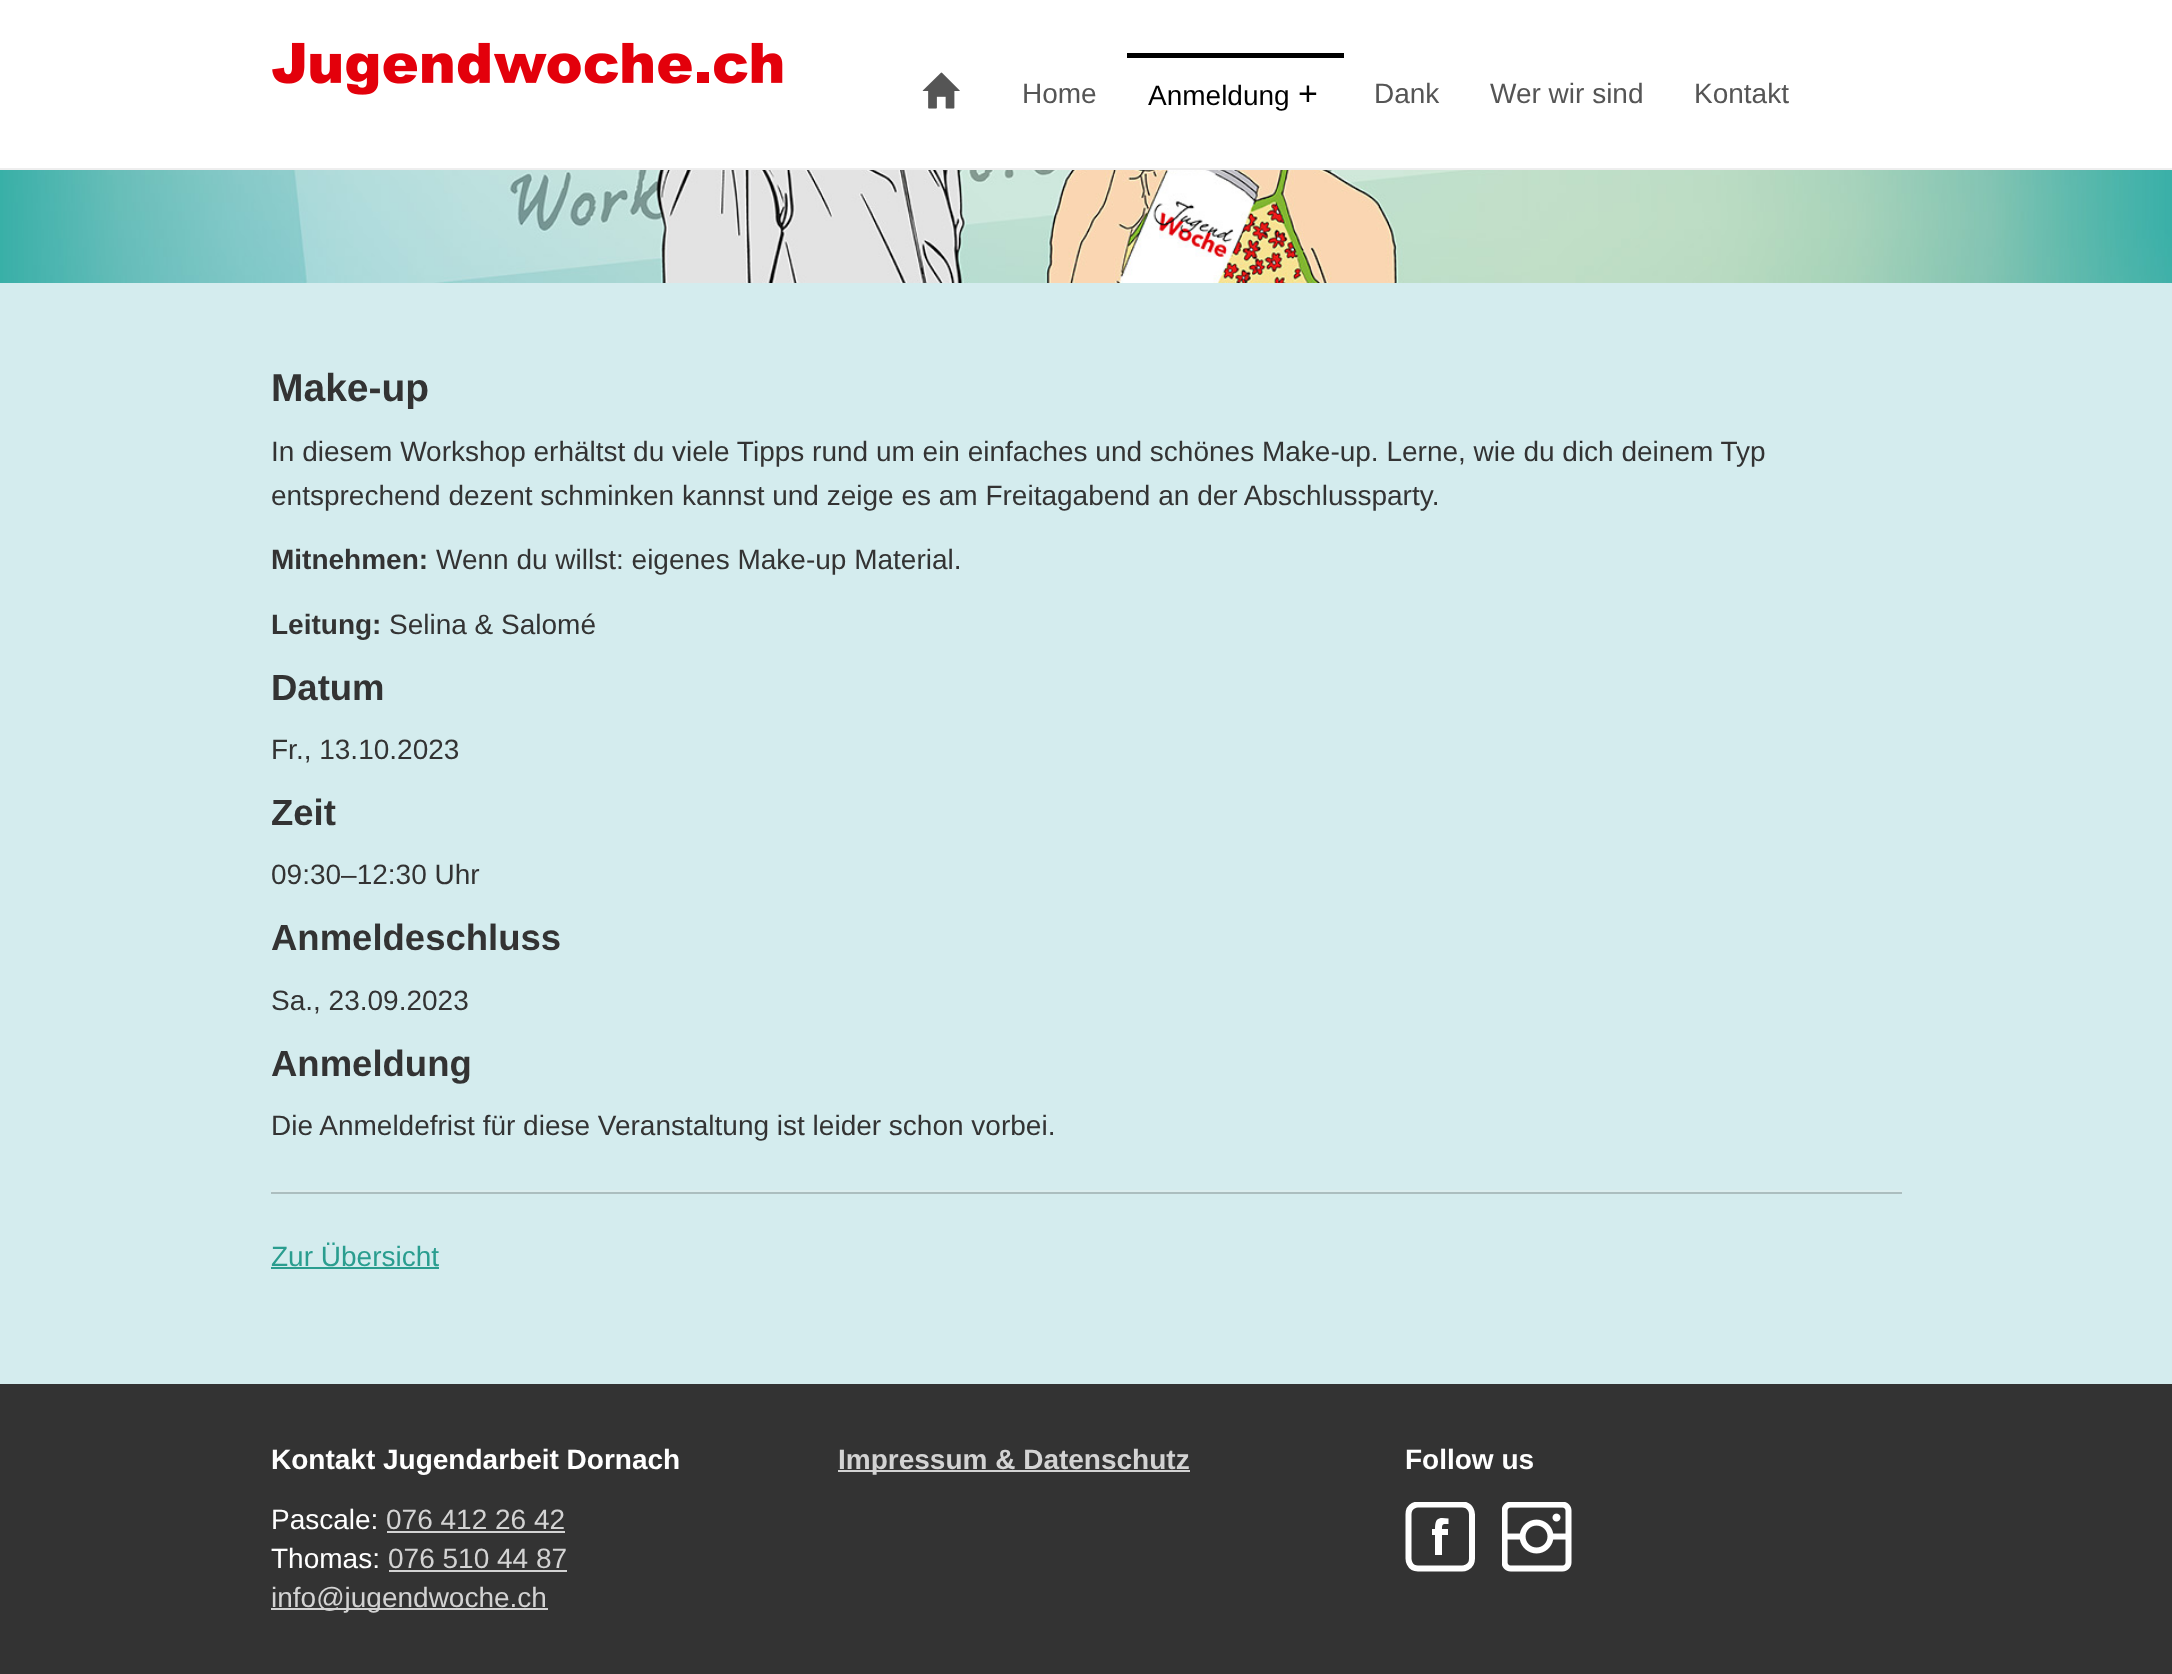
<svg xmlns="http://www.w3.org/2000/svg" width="2172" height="1674">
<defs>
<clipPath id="clip1"><rect x="1405" y="1502" width="70" height="70"/></clipPath>
</defs>
<rect width="100%" height="100%" fill="#d4ecee"/>
<rect width="2172" height="168" fill="#fff"/>
<rect y="168" width="2172" height="2" fill="#eee"/>
<image x="272" y="42" width="511" height="53" href="media/1.png"/>
<image x="922" y="72" width="38" height="37" href="media/2.png"/>
<text x="1022" y="103" style="font-family:Liberation Sans;font-size:28px;fill:#555">Home</text>
<rect x="1127" y="53" width="217" height="5" fill="#000"/>
<text x="1148" y="105" style="font-family:Liberation Sans;font-size:28px;fill:#000">Anmeldung</text>
<text x="1298" y="105" style="font-family:Liberation Sans;font-size:34px;fill:#000">+</text>
<text x="1374" y="103" style="font-family:Liberation Sans;font-size:28px;fill:#555">Dank</text>
<text x="1490" y="103" style="font-family:Liberation Sans;font-size:28px;fill:#555">Wer wir sind</text>
<text x="1694" y="103" style="font-family:Liberation Sans;font-size:28px;fill:#555">Kontakt</text>
<image x="0" y="170" width="2172" height="113" href="media/3.png"/>
<text x="271" y="401" style="font-family:Liberation Sans;font-size:39px;font-weight:bold;fill:#333">Make-up</text>
<text x="271" y="461" style="font-family:Liberation Sans;font-size:28px;fill:#333">In diesem Workshop erhältst du viele Tipps rund um ein einfaches und schönes Make-up. Lerne, wie du dich deinem Typ</text>
<text x="271" y="505" style="font-family:Liberation Sans;font-size:28px;fill:#333">entsprechend dezent schminken kannst und zeige es am Freitagabend an der Abschlussparty.</text>
<text x="271" y="569" style="font-family:Liberation Sans;font-size:28px;font-weight:bold;fill:#333">Mitnehmen:</text>
<text x="436" y="569" style="font-family:Liberation Sans;font-size:28px;fill:#333">Wenn du willst: eigenes Make-up Material.</text>
<text x="271" y="634" style="font-family:Liberation Sans;font-size:28px;font-weight:bold;fill:#333">Leitung:</text>
<text x="389" y="634" style="font-family:Liberation Sans;font-size:28px;fill:#333">Selina &amp; Salomé</text>
<text x="271" y="700" style="font-family:Liberation Sans;font-size:36.5px;font-weight:bold;fill:#333">Datum</text>
<text x="271" y="759" style="font-family:Liberation Sans;font-size:28px;fill:#333">Fr., 13.10.2023</text>
<text x="271" y="825" style="font-family:Liberation Sans;font-size:36.5px;font-weight:bold;fill:#333">Zeit</text>
<text x="271" y="884" style="font-family:Liberation Sans;font-size:28px;fill:#333">09:30–12:30 Uhr</text>
<text x="271" y="950" style="font-family:Liberation Sans;font-size:36.5px;font-weight:bold;fill:#333">Anmeldeschluss</text>
<text x="271" y="1010" style="font-family:Liberation Sans;font-size:28px;fill:#333">Sa., 23.09.2023</text>
<text x="271" y="1076" style="font-family:Liberation Sans;font-size:36.5px;font-weight:bold;fill:#333">Anmeldung</text>
<text x="271" y="1135" style="font-family:Liberation Sans;font-size:28px;fill:#333">Die Anmeldefrist für diese Veranstaltung ist leider schon vorbei.</text>
<rect x="271" y="1192" width="1631" height="2" fill="#acbebf"/>
<rect x="271" y="1190" width="1631" height="2" fill="#dbedee"/>
<text x="271" y="1266" style="font-family:Liberation Sans;font-size:28px;fill:#2a9d8f">Zur Übersicht</text>
<rect x="271" y="1267" width="168" height="2" fill="#2a9d8f"/>
<rect y="1384" width="2172" height="290" fill="#333"/>
<text x="271" y="1469" style="font-family:Liberation Sans;font-size:28px;font-weight:bold;fill:#fff">Kontakt Jugendarbeit Dornach</text>
<text x="271" y="1529" style="font-family:Liberation Sans;font-size:28px;fill:#fff">Pascale:</text>
<text x="386" y="1529" style="font-family:Liberation Sans;font-size:28px;fill:#d3d3d3">076 412 26 42</text>
<rect x="387" y="1531" width="178" height="2" fill="#d3d3d3"/>
<text x="271" y="1568" style="font-family:Liberation Sans;font-size:28px;fill:#fff">Thomas:</text>
<text x="388" y="1568" style="font-family:Liberation Sans;font-size:28px;fill:#d3d3d3">076 510 44 87</text>
<rect x="389" y="1570" width="178" height="2" fill="#d3d3d3"/>
<rect x="271" y="1608" width="277" height="2" fill="#d3d3d3"/>
<text x="271" y="1607" style="font-family:Liberation Sans;font-size:28px;fill:#d3d3d3">info@jugendwoche.ch</text>
<rect x="838" y="1470" width="352" height="2" fill="#d3d3d3"/>
<text x="838" y="1469" style="font-family:Liberation Sans;font-size:28px;font-weight:bold;fill:#d3d3d3">Impressum &amp; Datenschutz</text>
<text x="1405" y="1469" style="font-family:Liberation Sans;font-size:28px;font-weight:bold;fill:#fff">Follow us</text>
<g clip-path="url(#clip1)">
<path d="M1418 1504.5c0 0-9.5 0-9.5 10v44c0 0 0 10 9.5 10h44c0 0 10 0 10-10v-44c0 0 0-10-10-10z" fill="none" stroke="#fff" stroke-width="6"/>
</g>
<path d="M1448 1535v-6h-6c0-5.5 1-5 6.5-5v-5.5c-10-1.5-13.5-1-13.5 10.5h-3v6h3v20h7v-20z" fill="#fff"/>
<image x="1502" y="1502" width="70" height="70" href="media/4.png"/>
</svg>
